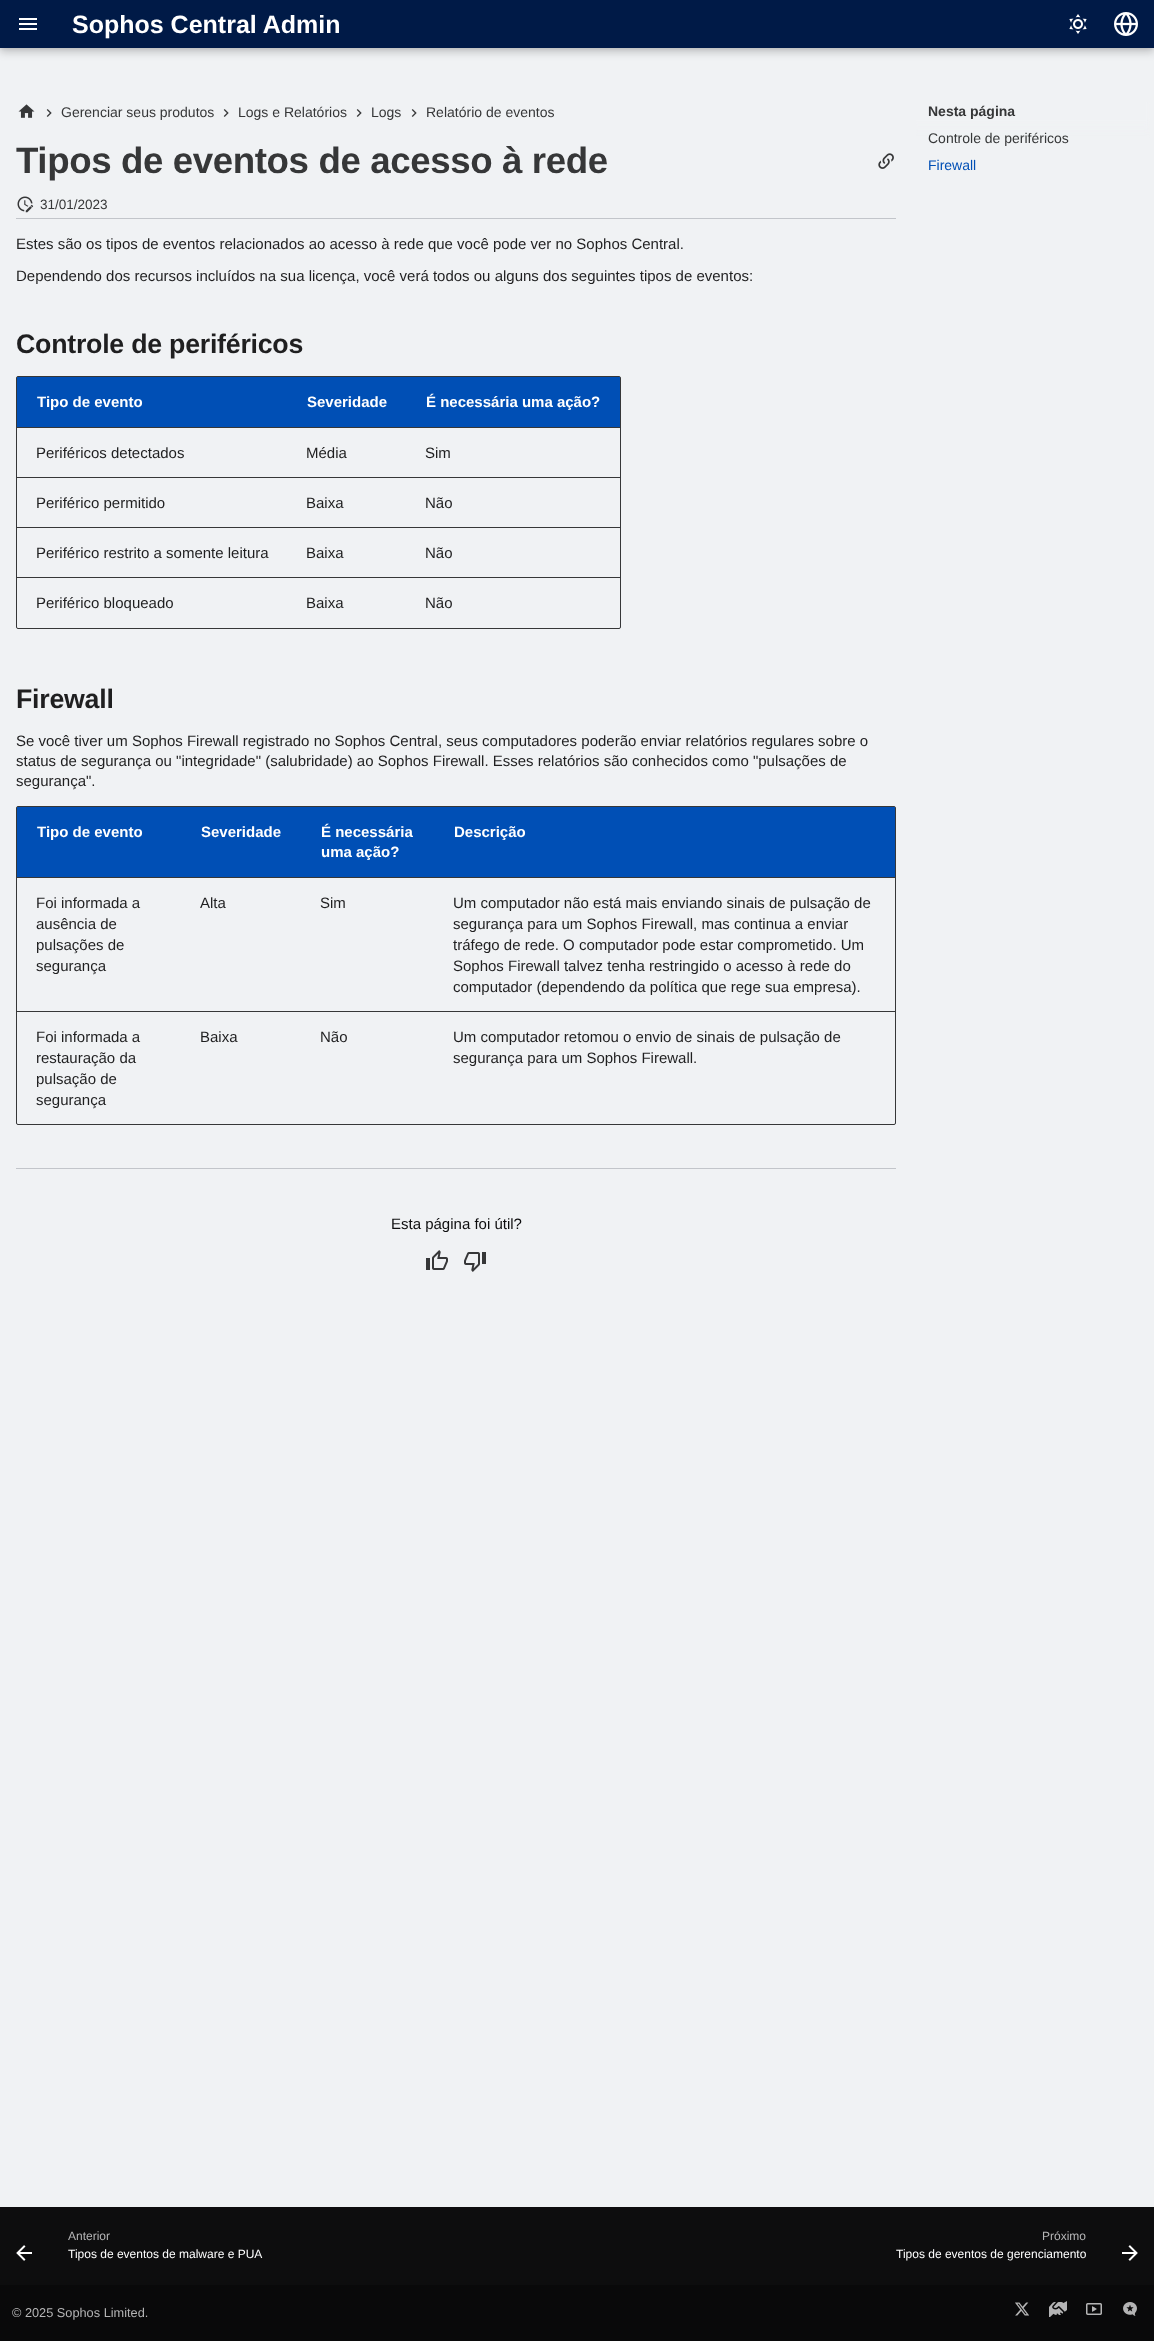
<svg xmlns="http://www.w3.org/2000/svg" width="1154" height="2341">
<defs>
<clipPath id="clip1"><rect x="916" y="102" width="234" height="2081"/></clipPath>
<clipPath id="clip2"><path d="M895 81h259v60h-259zm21 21h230v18h-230z" clip-rule="evenodd"/></clipPath>
</defs>
<rect width="100%" height="100%" fill="#f0f2f4"/>
<rect y="4" width="1154" height="48" fill="#00000033" filter="blur(4px)"/>
<rect width="1154" height="48" fill="#0000001a" filter="blur(2px)"/>
<rect width="1154" height="48" fill="#001a47"/>
<image x="19" y="18" width="18" height="12" href="media/1.png"/>
<text x="72" y="33" style="font-family:Liberation Sans;font-size:25px;font-weight:bold;fill:#fff">Sophos Central Admin</text>
<image x="1069" y="14" width="18" height="20" href="media/2.png"/>
<image x="1114" y="12" width="24" height="24" href="media/3.png"/>
<image x="18" y="104" width="17" height="14" href="media/4.png"/>
<image x="46" y="109" width="6" height="8" href="media/5.png"/>
<text x="61" y="117" style="font-family:Liberation Sans;font-size:14px;fill:#363738">Gerenciar seus produtos</text>
<image x="223" y="109" width="6" height="8" href="media/5.png"/>
<text x="238" y="117" style="font-family:Liberation Sans;font-size:14px;fill:#363738">Logs e Relatórios</text>
<image x="356" y="109" width="6" height="8" href="media/5.png"/>
<text x="371" y="117" style="font-family:Liberation Sans;font-size:14px;fill:#363738">Logs</text>
<image x="411" y="109" width="6" height="8" href="media/5.png"/>
<text x="426" y="117" style="font-family:Liberation Sans;font-size:14px;fill:#363738">Relatório de eventos</text>
<text x="16" y="173" style="font-family:Liberation Sans;font-size:36.7px;font-weight:bold;letter-spacing:-0.4px;fill:#363738">Tipos de eventos de acesso à rede</text>
<image x="878" y="153" width="16" height="16" href="media/6.png"/>
<rect x="16" y="218" width="880" height="1" fill="#c2c5ca"/>
<image x="17" y="196" width="17" height="17" href="media/7.png"/>
<text x="40" y="209" style="font-family:Liberation Sans;font-size:13.5px;fill:#363738">31/01/2023</text>
<text x="16" y="249" style="font-family:Liberation Sans;font-size:15px;fill:#1f1f20">Estes são os tipos de eventos relacionados ao acesso à rede que você pode ver no Sophos Central.</text>
<text x="16" y="281" style="font-family:Liberation Sans;font-size:15px;fill:#1f1f20">Dependendo dos recursos incluídos na sua licença, você verá todos ou alguns dos seguintes tipos de eventos:</text>
<text x="16" y="353" style="font-family:Liberation Sans;font-size:26.75px;font-weight:bold;letter-spacing:-0.25px;fill:#1f1f20">Controle de periféricos</text>
<rect x="16.5" y="376.5" width="604" height="252" rx="1.5" fill="none" stroke="#363738"/>
<rect x="17.5" y="377.5" width="269" height="49" fill="#004fb5" stroke="#004fb5"/>
<text x="37" y="407" style="font-family:Liberation Sans;font-size:15px;font-weight:bold;fill:#fff">Tipo de evento</text>
<rect x="287" y="377" width="120" height="50" fill="#004fb5"/>
<text x="307" y="407" style="font-family:Liberation Sans;font-size:15px;font-weight:bold;fill:#fff">Severidade</text>
<rect x="407.5" y="377.5" width="212" height="49" fill="#004fb5" stroke="#004fb5"/>
<text x="426" y="407" style="font-family:Liberation Sans;font-size:15px;font-weight:bold;fill:#fff">É necessária uma ação?</text>
<rect x="17" y="427" width="603" height="1" fill="#363738"/>
<text x="36" y="458" style="font-family:Liberation Sans;font-size:15px;fill:#1f1f20">Periféricos detectados</text>
<text x="306" y="458" style="font-family:Liberation Sans;font-size:15px;fill:#1f1f20">Média</text>
<text x="425" y="458" style="font-family:Liberation Sans;font-size:15px;fill:#1f1f20">Sim</text>
<rect x="17" y="477" width="603" height="1" fill="#363738"/>
<text x="36" y="508" style="font-family:Liberation Sans;font-size:15px;fill:#1f1f20">Periférico permitido</text>
<text x="306" y="508" style="font-family:Liberation Sans;font-size:15px;fill:#1f1f20">Baixa</text>
<text x="425" y="508" style="font-family:Liberation Sans;font-size:15px;fill:#1f1f20">Não</text>
<rect x="17" y="527" width="603" height="1" fill="#363738"/>
<text x="36" y="558" style="font-family:Liberation Sans;font-size:15px;fill:#1f1f20">Periférico restrito a somente leitura</text>
<text x="306" y="558" style="font-family:Liberation Sans;font-size:15px;fill:#1f1f20">Baixa</text>
<text x="425" y="558" style="font-family:Liberation Sans;font-size:15px;fill:#1f1f20">Não</text>
<rect x="17" y="577" width="603" height="1" fill="#363738"/>
<text x="36" y="608" style="font-family:Liberation Sans;font-size:15px;fill:#1f1f20">Periférico bloqueado</text>
<text x="306" y="608" style="font-family:Liberation Sans;font-size:15px;fill:#1f1f20">Baixa</text>
<text x="425" y="608" style="font-family:Liberation Sans;font-size:15px;fill:#1f1f20">Não</text>
<text x="16" y="708" style="font-family:Liberation Sans;font-size:26.75px;font-weight:bold;letter-spacing:-0.25px;fill:#1f1f20">Firewall</text>
<text x="16" y="746" style="font-family:Liberation Sans;font-size:15px;fill:#1f1f20">Se você tiver um Sophos Firewall registrado no Sophos Central, seus computadores poderão enviar relatórios regulares sobre o</text>
<text x="16" y="766" style="font-family:Liberation Sans;font-size:15px;fill:#1f1f20">status de segurança ou "integridade" (salubridade) ao Sophos Firewall. Esses relatórios são conhecidos como "pulsações de</text>
<text x="16" y="786" style="font-family:Liberation Sans;font-size:15px;fill:#1f1f20">segurança".</text>
<rect x="16.5" y="806.5" width="879" height="318" rx="1.5" fill="none" stroke="#363738"/>
<rect x="17.5" y="807.5" width="164" height="69" fill="#004fb5" stroke="#004fb5"/>
<text x="37" y="837" style="font-family:Liberation Sans;font-size:15px;font-weight:bold;fill:#fff">Tipo de evento</text>
<rect x="182" y="807" width="252" height="70" fill="#004fb5"/>
<text x="201" y="837" style="font-family:Liberation Sans;font-size:15px;font-weight:bold;fill:#fff">Severidade</text>
<text x="321" y="837" style="font-family:Liberation Sans;font-size:15px;font-weight:bold;fill:#fff">É necessária</text>
<text x="321" y="857" style="font-family:Liberation Sans;font-size:15px;font-weight:bold;fill:#fff">uma ação?</text>
<rect x="434.5" y="807.5" width="460" height="69" fill="#004fb5" stroke="#004fb5"/>
<text x="454" y="837" style="font-family:Liberation Sans;font-size:15px;font-weight:bold;fill:#fff">Descrição</text>
<rect x="17" y="877" width="878" height="1" fill="#363738"/>
<text x="36" y="908" style="font-family:Liberation Sans;font-size:15px;fill:#1f1f20">Foi informada a</text>
<text x="36" y="929" style="font-family:Liberation Sans;font-size:15px;fill:#1f1f20">ausência de</text>
<text x="36" y="950" style="font-family:Liberation Sans;font-size:15px;fill:#1f1f20">pulsações de</text>
<text x="36" y="971" style="font-family:Liberation Sans;font-size:15px;fill:#1f1f20">segurança</text>
<text x="200" y="908" style="font-family:Liberation Sans;font-size:15px;fill:#1f1f20">Alta</text>
<text x="320" y="908" style="font-family:Liberation Sans;font-size:15px;fill:#1f1f20">Sim</text>
<text x="453" y="908" style="font-family:Liberation Sans;font-size:15px;fill:#1f1f20">Um computador não está mais enviando sinais de pulsação de</text>
<text x="453" y="929" style="font-family:Liberation Sans;font-size:15px;fill:#1f1f20">segurança para um Sophos Firewall, mas continua a enviar</text>
<text x="453" y="950" style="font-family:Liberation Sans;font-size:15px;fill:#1f1f20">tráfego de rede. O computador pode estar comprometido. Um</text>
<text x="453" y="971" style="font-family:Liberation Sans;font-size:15px;fill:#1f1f20">Sophos Firewall talvez tenha restringido o acesso à rede do</text>
<text x="453" y="992" style="font-family:Liberation Sans;font-size:15px;fill:#1f1f20">computador (dependendo da política que rege sua empresa).</text>
<rect x="17" y="1011" width="878" height="1" fill="#363738"/>
<text x="36" y="1042" style="font-family:Liberation Sans;font-size:15px;fill:#1f1f20">Foi informada a</text>
<text x="36" y="1063" style="font-family:Liberation Sans;font-size:15px;fill:#1f1f20">restauração da</text>
<text x="36" y="1084" style="font-family:Liberation Sans;font-size:15px;fill:#1f1f20">pulsação de</text>
<text x="36" y="1105" style="font-family:Liberation Sans;font-size:15px;fill:#1f1f20">segurança</text>
<text x="200" y="1042" style="font-family:Liberation Sans;font-size:15px;fill:#1f1f20">Baixa</text>
<text x="320" y="1042" style="font-family:Liberation Sans;font-size:15px;fill:#1f1f20">Não</text>
<text x="453" y="1042" style="font-family:Liberation Sans;font-size:15px;fill:#1f1f20">Um computador retomou o envio de sinais de pulsação de</text>
<text x="453" y="1063" style="font-family:Liberation Sans;font-size:15px;fill:#1f1f20">segurança para um Sophos Firewall.</text>
<rect x="16" y="1168" width="880" height="1" fill="#c2c5ca"/>
<text x="391" y="1229" style="font-family:Liberation Sans;font-size:15px;fill:#0d0d0e">Esta página foi útil?</text>
<image x="426" y="1250" width="22" height="20" href="media/8.png"/>
<image x="464" y="1252" width="22" height="20" href="media/9.png"/>
<g clip-path="url(#clip1)">
<g clip-path="url(#clip2)">
<rect x="908" y="94" width="246" height="34" fill="#f0f2f4" filter="blur(4px)"/>
</g>
</g>
<text x="928" y="116" style="font-family:Liberation Sans;font-size:14px;font-weight:bold;fill:#363738">Nesta página</text>
<text x="928" y="143" style="font-family:Liberation Sans;font-size:14px;fill:#363738">Controle de periféricos</text>
<text x="928" y="170" style="font-family:Liberation Sans;font-size:14px;fill:#004fb5">Firewall</text>
<rect y="2207" width="1154" height="78" fill="#0d0d0e"/>
<image x="16" y="2245" width="16" height="16" href="media/10.png"/>
<text x="68" y="2240" style="font-family:Liberation Sans;font-size:12px;fill:#b5b5b6">Anterior</text>
<text x="68" y="2258" style="font-family:Liberation Sans;font-size:12px;fill:#fff">Tipos de eventos de malware e PUA</text>
<text x="1042" y="2240" style="font-family:Liberation Sans;font-size:12px;fill:#b5b5b6">Próximo</text>
<text x="896" y="2258" style="font-family:Liberation Sans;font-size:12px;fill:#fff">Tipos de eventos de gerenciamento</text>
<image x="1122" y="2245" width="16" height="16" href="media/11.png"/>
<rect y="2285" width="1154" height="56" fill="#09090a"/>
<text x="12" y="2317" style="font-family:Liberation Sans;font-size:12.75px;fill:#b5b5b6">© 2025 Sophos Limited.</text>
<image x="1015" y="2302" width="14" height="14" href="media/12.png"/>
<image x="1049" y="2301" width="18" height="16" href="media/13.png"/>
<image x="1086" y="2303" width="16" height="12" href="media/14.png"/>
<image x="1123" y="2302" width="14" height="14" href="media/15.png"/>
</svg>
